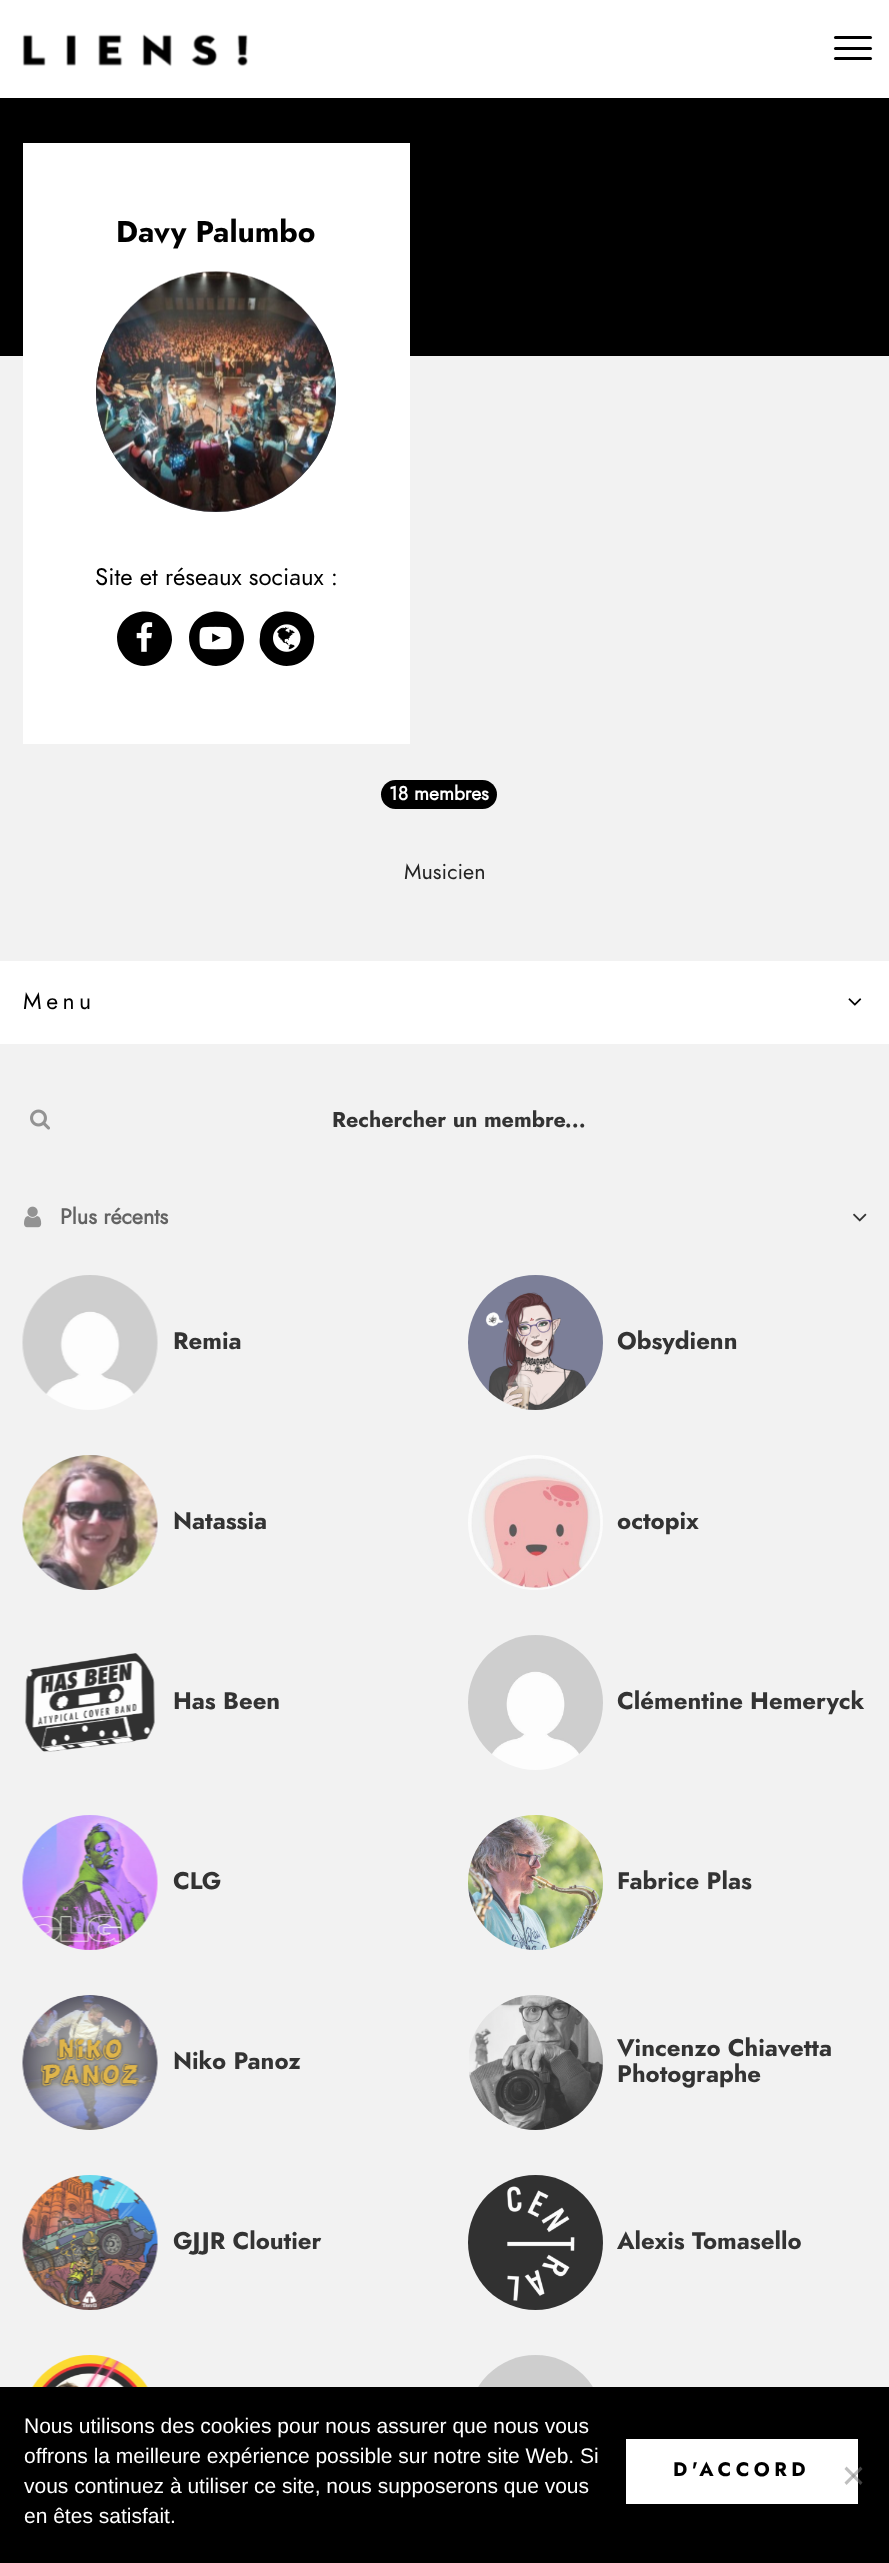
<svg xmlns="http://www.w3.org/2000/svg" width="889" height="2563">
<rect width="100%" height="100%" fill="#fff"/>
<image x="22" y="34" width="226" height="33" href="media/1.png"/>
<rect x="834" y="47" width="38" height="3" rx="1.5" fill="#000"/>
<rect x="834" y="36" width="38" height="3" rx="1.5" fill="#000"/>
<rect x="834" y="57" width="38" height="3" rx="1.5" fill="#000"/>
<rect y="98" width="889" height="258" fill="#000"/>
<rect y="356" width="889" height="605" fill="#f2f2f2"/>
<rect x="23" y="143" width="387" height="601" fill="#fff"/>
<text x="116" y="242" style="font-family:Jost;font-size:30px;font-weight:bold;fill:#000">Davy Palumbo</text>
<circle cx="216" cy="392" r="120" fill="#3d404a"/>
<image x="96" y="271" width="240" height="241" href="media/2.png"/>
<text x="95" y="585" style="font-family:Jost;font-size:24px;fill:#000">Site et réseaux sociaux :</text>
<path d="M168 625c3 5 4 10 4 15c-2 27-38 36-51 12c-3-4-4-10-4-15c2-27 38-35 51-12z" fill="#000"/>
<image x="136" y="622" width="17" height="30" href="media/3.png"/>
<path d="M240 625c3 5 4 10 4 15c-2 27-38 36-51 12c-3-4-4-10-4-15c2-27 38-35 51-12z" fill="#000"/>
<image x="199" y="626" width="33" height="24" href="media/4.png"/>
<path d="M311 625c2 5 4 10 3 15c-1 27-37 36-51 12c-3-4-4-10-3-15c1-27 37-35 51-12z" fill="#000"/>
<image x="273" y="624" width="28" height="28" href="media/5.png"/>
<rect x="381" y="780" width="116" height="29" rx="14.5" fill="#000"/>
<text x="389" y="800" style="font-family:'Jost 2';font-size:19.25px;font-weight:bold;fill:#fff">18 membres</text>
<text x="404" y="879" style="font-family:Jost;font-size:21.6px;fill:#242424">Musicien</text>
<rect y="1044" width="889" height="1343" fill="#f2f2f2"/>
<text x="23" y="1009" style="font-family:Jost;font-size:23px;letter-spacing:4.5px;fill:#000">Menu</text>
<image x="848" y="998" width="14" height="8" href="media/6.png"/>
<image x="30" y="1109" width="20" height="21" href="media/7.png"/>
<text x="332" y="1127" style="font-family:Jost;font-size:21.6px;font-weight:bold;fill:#333">Rechercher un membre...</text>
<image x="24" y="1206" width="18" height="22" href="media/8.png"/>
<text x="60" y="1224" style="font-family:'Jost 2';font-size:21.6px;font-weight:bold;fill:#636363">Plus récents</text>
<image x="853" y="1213" width="14" height="9" href="media/9.png"/>
<image x="22" y="1275" width="136" height="135" href="media/10.png"/>
<text x="173" y="1349" style="font-family:Jost;font-size:24px;font-weight:bold;fill:#333">Remia</text>
<image x="468" y="1275" width="135" height="135" href="media/11.png"/>
<text x="617" y="1349" style="font-family:Jost;font-size:24px;font-weight:bold;fill:#333">Obsydienn</text>
<image x="22" y="1455" width="136" height="135" href="media/12.png"/>
<text x="173" y="1529" style="font-family:Jost;font-size:24px;font-weight:bold;fill:#333">Natassia</text>
<image x="468" y="1455" width="135" height="135" href="media/13.png"/>
<text x="617" y="1529" style="font-family:Jost;font-size:24px;font-weight:bold;fill:#333">octopix</text>
<image x="25" y="1653" width="130" height="99" href="media/14.png"/>
<text x="173" y="1709" style="font-family:Jost;font-size:24px;font-weight:bold;fill:#333">Has Been</text>
<image x="468" y="1635" width="135" height="135" href="media/15.png"/>
<text x="617" y="1709" style="font-family:Jost;font-size:24px;font-weight:bold;fill:#333">Clémentine Hemeryck</text>
<image x="22" y="1815" width="136" height="135" href="media/16.png"/>
<text x="173" y="1889" style="font-family:Jost;font-size:24px;font-weight:bold;fill:#333">CLG</text>
<image x="468" y="1815" width="135" height="135" href="media/17.png"/>
<text x="617" y="1889" style="font-family:Jost;font-size:24px;font-weight:bold;fill:#333">Fabrice Plas</text>
<image x="22" y="1995" width="136" height="135" href="media/18.png"/>
<text x="173" y="2069" style="font-family:Jost;font-size:24px;font-weight:bold;fill:#333">Niko Panoz</text>
<image x="469" y="1995" width="134" height="135" href="media/19.png"/>
<text x="617" y="2056" style="font-family:Jost;font-size:24px;font-weight:bold;fill:#333">Vincenzo Chiavetta</text>
<text x="617" y="2082" style="font-family:Jost;font-size:24px;font-weight:bold;fill:#333">Photographe</text>
<image x="22" y="2175" width="136" height="135" href="media/20.png"/>
<text x="173" y="2249" style="font-family:Jost;font-size:24px;font-weight:bold;fill:#333">GJJR Cloutier</text>
<image x="468" y="2175" width="135" height="135" href="media/21.png"/>
<text x="617" y="2249" style="font-family:Jost;font-size:24px;font-weight:bold;fill:#333">Alexis Tomasello</text>
<image x="32" y="2355" width="116" height="32" href="media/22.png"/>
<image x="478" y="2355" width="115" height="32" href="media/23.png"/>
<rect y="2387" width="889" height="176" fill="#000"/>
<text x="24" y="2433" style="font-family:Liberation Sans;font-size:21px;fill:#fff">Nous utilisons des cookies pour nous assurer que nous vous</text>
<text x="24" y="2463" style="font-family:Liberation Sans;font-size:21px;fill:#fff">offrons la meilleure expérience possible sur notre site Web. Si</text>
<text x="24" y="2493" style="font-family:Liberation Sans;font-size:21px;fill:#fff">vous continuez à utiliser ce site, nous supposerons que vous</text>
<text x="24" y="2523" style="font-family:Liberation Sans;font-size:21px;fill:#fff">en êtes satisfait.</text>
<rect x="626" y="2439" width="232" height="65" fill="#fff"/>
<text x="673" y="2476" style="font-family:Jost;font-size:19.5px;font-weight:bold;letter-spacing:4.5px;fill:#000">D'ACCORD</text>
<path d="M860.5 2466.5l2 2.5l-16 16l-2-2.5z" fill="#80808080"/>
<path d="M844.5 2469l2-2.5l16 16l-2 2.5z" fill="#80808080"/>
</svg>
